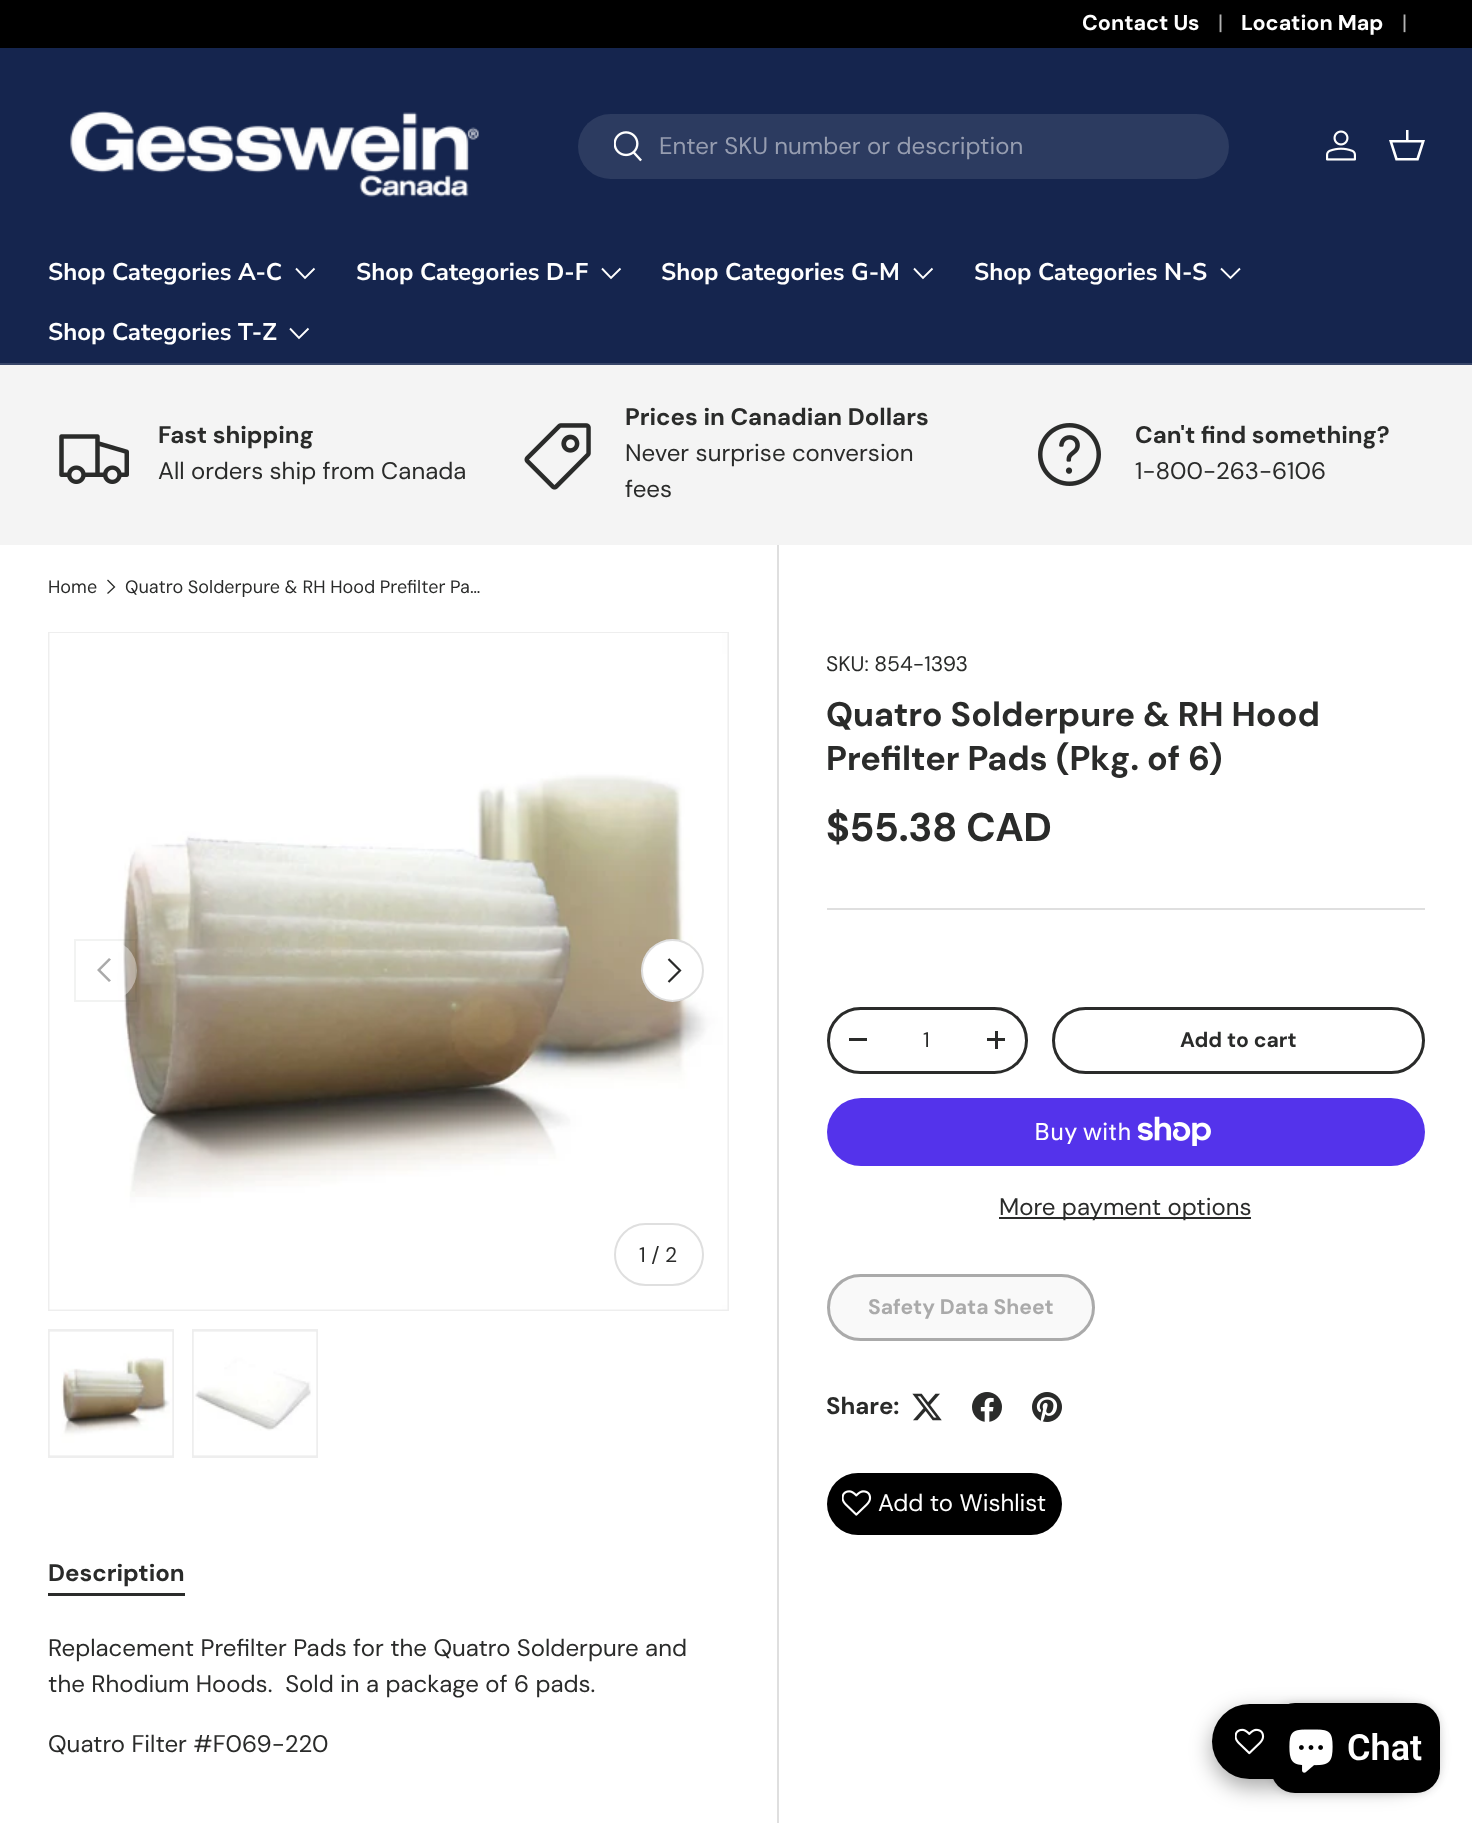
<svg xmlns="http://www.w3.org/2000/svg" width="1472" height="1823">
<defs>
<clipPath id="clip1"><rect x="827" y="1274" width="268" height="67" rx="33.5"/></clipPath>
<linearGradient id="g1" gradientUnits="userSpaceOnUse" x1="845" y1="1213" x2="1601" y2="1401"><stop offset="0.6" stop-color="#f9f9f9"/><stop offset="0.6" stop-color="#fff"/><stop offset="1" stop-color="#fff"/></linearGradient>
</defs>
<rect width="100%" height="100%" fill="#fff"/>
<rect width="1472" height="48" fill="#000"/>
<text x="1082" y="30" style="font-family:'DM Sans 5';font-size:21.5px;font-weight:bold;fill:#fff">Contact Us</text>
<text x="1218" y="30" style="font-family:'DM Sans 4';font-size:21.5px;fill:#b3b3b3">|</text>
<text x="1241" y="30" style="font-family:'DM Sans 5';font-size:21.5px;font-weight:bold;fill:#fff">Location Map</text>
<text x="1402" y="30" style="font-family:'DM Sans 4';font-size:21.5px;fill:#b3b3b3">|</text>
<rect y="48" width="1472" height="315" fill="#15254e"/>
<rect y="363" width="1472" height="2" fill="#384669"/>
<image x="70" y="110" width="409" height="87" href="media/1.png"/>
<rect x="578" y="114" width="651" height="65" rx="32.5" fill="#2c3b60"/>
<image x="614" y="131" width="28" height="31" href="media/2.png"/>
<text x="659" y="154" style="font-family:'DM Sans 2';font-size:24px;fill:#969db0">Enter SKU number or description</text>
<image x="1326" y="130" width="30" height="31" href="media/3.png"/>
<path d="M1406 140v-10h2.5v10h16.5l-6.5 20.5h-23l-6.5-20.5zm-13.5 2.5l5 15.5h19l5-15.5z" fill="#fff"/>
<text x="48" y="280" style="font-family:Nunito Sans;font-size:24px;font-weight:bold;fill:#fff">Shop Categories A-C</text>
<path d="M314.5 268.5l-9.5 9.5l-9-9.5" fill="none" stroke="#fff" stroke-width="1.9"/>
<text x="356" y="280" style="font-family:Nunito Sans;font-size:24px;font-weight:bold;fill:#fff">Shop Categories D-F</text>
<path d="M620.5 268.5l-9.5 9.5l-9-9.5" fill="none" stroke="#fff" stroke-width="1.9"/>
<text x="661" y="280" style="font-family:Nunito Sans;font-size:24px;font-weight:bold;fill:#fff">Shop Categories G-M</text>
<path d="M932.5 268.5l-9.5 9.5l-9-9.5" fill="none" stroke="#fff" stroke-width="1.9"/>
<text x="974" y="280" style="font-family:Nunito Sans;font-size:24px;font-weight:bold;fill:#fff">Shop Categories N-S</text>
<path d="M1240 268.5l-9.5 9.5l-9.5-9.5" fill="none" stroke="#fff" stroke-width="1.9"/>
<text x="48" y="340" style="font-family:Nunito Sans;font-size:24px;font-weight:bold;fill:#fff">Shop Categories T-Z</text>
<path d="M308.5 328.5l-9.5 9.5l-9-9.5" fill="none" stroke="#fff" stroke-width="1.9"/>
<rect y="365" width="1472" height="180" fill="#f4f4f4"/>
<image x="59" y="434" width="70" height="50" href="media/4.png"/>
<text x="158" y="443" style="font-family:DM Sans;font-size:24px;font-weight:bold;fill:#2a2b2a">Fast shipping</text>
<text x="158" y="479" style="font-family:'DM Sans 2';font-size:24px;fill:#2a2b2a">All orders ship from Canada</text>
<image x="524" y="423" width="67" height="67" href="media/5.png"/>
<text x="625" y="425" style="font-family:DM Sans;font-size:24px;font-weight:bold;fill:#2a2b2a">Prices in Canadian Dollars</text>
<text x="625" y="461" style="font-family:'DM Sans 2';font-size:24px;fill:#2a2b2a">Never surprise conversion</text>
<text x="625" y="497" style="font-family:'DM Sans 2';font-size:24px;fill:#2a2b2a">fees</text>
<image x="1038" y="423" width="63" height="63" href="media/6.png"/>
<text x="1135" y="443" style="font-family:DM Sans;font-size:24px;font-weight:bold;fill:#2a2b2a">Can't find something?</text>
<text x="1135" y="479" style="font-family:'DM Sans 2';font-size:24px;fill:#2a2b2a">1-800-263-6106</text>
<text x="48" y="593" style="font-family:DM Sans;font-size:18px;fill:#2a2b2a">Home</text>
<path d="M107.5 580l7 7l-7 6.5" fill="none" stroke="#2a2b2a" stroke-width="1.3"/>
<text x="125" y="593" word-spacing="-0.25" style="font-family:DM Sans;font-size:18px;fill:#2a2b2a">Quatro Solderpure &amp; RH Hood Prefilter Pa…</text>
<rect x="49" y="633" width="679" height="677" fill="none" stroke="#eee" stroke-width="2"/>
<image x="49" y="633" width="679" height="677" href="media/7.png"/>
<circle cx="105.5" cy="970.5" r="31.5" fill="#ffffff66"/>
<rect x="75" y="940" width="61" height="61" fill="none" stroke="#2a2b2a0f" stroke-width="2"/>
<path d="M97 970l12-12l2 1.5l-10.5 10.5l10.5 10.5l-2 1.5z" fill="#aaa"/>
<circle cx="672.5" cy="970.5" r="31.5" fill="#fff"/>
<circle cx="672.5" cy="970.5" r="30.5" fill="none" stroke="#2a2b2a26" stroke-width="2"/>
<path d="M668.5 959l11.5 11.5l-11.5 11.5" fill="none" stroke="#2a2b2a" stroke-width="2.2"/>
<rect x="615" y="1224" width="88" height="61" rx="30.5" fill="none" stroke="#dfdfdf" stroke-width="2"/>
<text x="639" y="1262" style="font-family:'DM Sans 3';font-size:21.1px;fill:#2a2b2a">1 / 2</text>
<rect x="49" y="1330" width="124" height="127" fill="#f4f4f4" stroke="#eee" stroke-width="2"/>
<image x="49" y="1332" width="124" height="123" href="media/8.png"/>
<rect x="193" y="1330" width="124" height="127" fill="#f4f4f4" stroke="#eee" stroke-width="2"/>
<image x="193" y="1332" width="124" height="123" href="media/9.png"/>
<rect x="777" y="545" width="2" height="1278" fill="#dfdfdf"/>
<text x="826" y="671" style="font-family:'DM Sans 3';font-size:21.1px;fill:#2a2b2a">SKU: 854-1393</text>
<text x="826" y="726" style="font-family:'DM Sans 2';font-size:34.2px;font-weight:bold;fill:#2a2b2a">Quatro Solderpure &amp; RH Hood</text>
<text x="826" y="770" style="font-family:'DM Sans 2';font-size:34.2px;font-weight:bold;fill:#2a2b2a">Prefilter Pads (Pkg. of 6)</text>
<text x="826" y="841" style="font-family:'DM Sans 3';font-size:40px;font-weight:bold;fill:#2a2b2a">$55.38 CAD</text>
<rect x="827" y="908" width="598" height="2" fill="#dfdfdf"/>
<rect x="828.5" y="1008.5" width="198" height="64" rx="32" fill="none" stroke="#2a2b2a" stroke-width="3"/>
<rect x="849" y="1038" width="18" height="3" fill="#2a2b2a"/>
<text x="923" y="1047" style="font-family:'DM Sans 3';font-size:21.1px;fill:#2a2b2a">1</text>
<rect x="987" y="1038" width="18" height="3" fill="#2a2b2a"/>
<rect x="995" y="1031" width="3" height="18" fill="#2a2b2a"/>
<rect x="1053.5" y="1008.5" width="370" height="64" rx="32" fill="none" stroke="#2a2b2a" stroke-width="3"/>
<text x="1180" y="1047" style="font-family:'DM Sans 4';font-size:21.1px;font-weight:bold;fill:#2a2b2a">Add to cart</text>
<rect x="827" y="1098" width="598" height="68" rx="34" fill="#5433eb"/>
<text x="1034" y="1140" style="font-family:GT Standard;font-size:24px;fill:#fff">Buy with</text>
<image x="1137" y="1116" width="74" height="30" href="media/10.png"/>
<rect x="999" y="1217" width="252" height="2" fill="#2a2b2a"/>
<text x="999" y="1215" style="font-family:'DM Sans 2';font-size:24px;fill:#2a2b2a">More payment options</text>
<g clip-path="url(#clip1)">
<rect x="830" y="1277" width="265" height="61" fill="url(#g1)"/>
</g>
<rect x="828.5" y="1275.5" width="265" height="64" rx="32" fill="none" stroke="#aaa" stroke-width="3"/>
<text x="868" y="1314" style="font-family:'DM Sans 4';font-size:21.1px;font-weight:bold;fill:#aaa">Safety Data Sheet</text>
<text x="826" y="1414" style="font-family:DM Sans;font-size:24px;font-weight:bold;fill:#2a2b2a">Share:</text>
<image x="912" y="1393" width="30" height="28" href="media/11.png"/>
<image x="972" y="1392" width="30" height="30" href="media/12.png"/>
<image x="1032" y="1392" width="30" height="30" href="media/13.png"/>
<rect x="827" y="1473" width="235" height="62" rx="31" fill="#000"/>
<image x="842" y="1490" width="30" height="26" href="media/14.png"/>
<text x="878" y="1511" style="font-family:'DM Sans 2';font-size:24px;fill:#fff">Add to Wishlist</text>
<text x="48" y="1581" style="font-family:DM Sans;font-size:24px;font-weight:bold;fill:#2a2b2a">Description</text>
<rect x="48" y="1593" width="137" height="3" fill="#2a2b2a"/>
<text x="48" y="1656" style="font-family:'DM Sans 2';font-size:24px;fill:#2a2b2a">Replacement Prefilter Pads for the Quatro Solderpure and</text>
<text x="48" y="1692" style="font-family:'DM Sans 2';font-size:24px;fill:#2a2b2a" xml:space="preserve">the Rhodium Hoods.  Sold in a package of 6 pads.</text>
<text x="48" y="1752" style="font-family:'DM Sans 2';font-size:24px;fill:#2a2b2a">Quatro Filter #F069-220</text>
<rect x="1212" y="1712" width="216" height="75" rx="37.5" fill="#00000059" filter="blur(11px)"/>
<rect x="1212" y="1704" width="216" height="75" rx="37.5" fill="#000"/>
<image x="1235" y="1728" width="30" height="27" href="media/15.png"/>
<rect x="1271" y="1703" width="169" height="90" rx="24" fill="#00000026" filter="blur(4px)"/>
<rect x="1271" y="1703" width="169" height="90" rx="24" fill="#000"/>
<image x="1289" y="1729" width="44" height="44" href="media/16.png"/>
<text x="1347" y="1760" style="font-family:Roboto;font-size:36px;font-weight:600;fill:#fff">Chat</text>
</svg>
